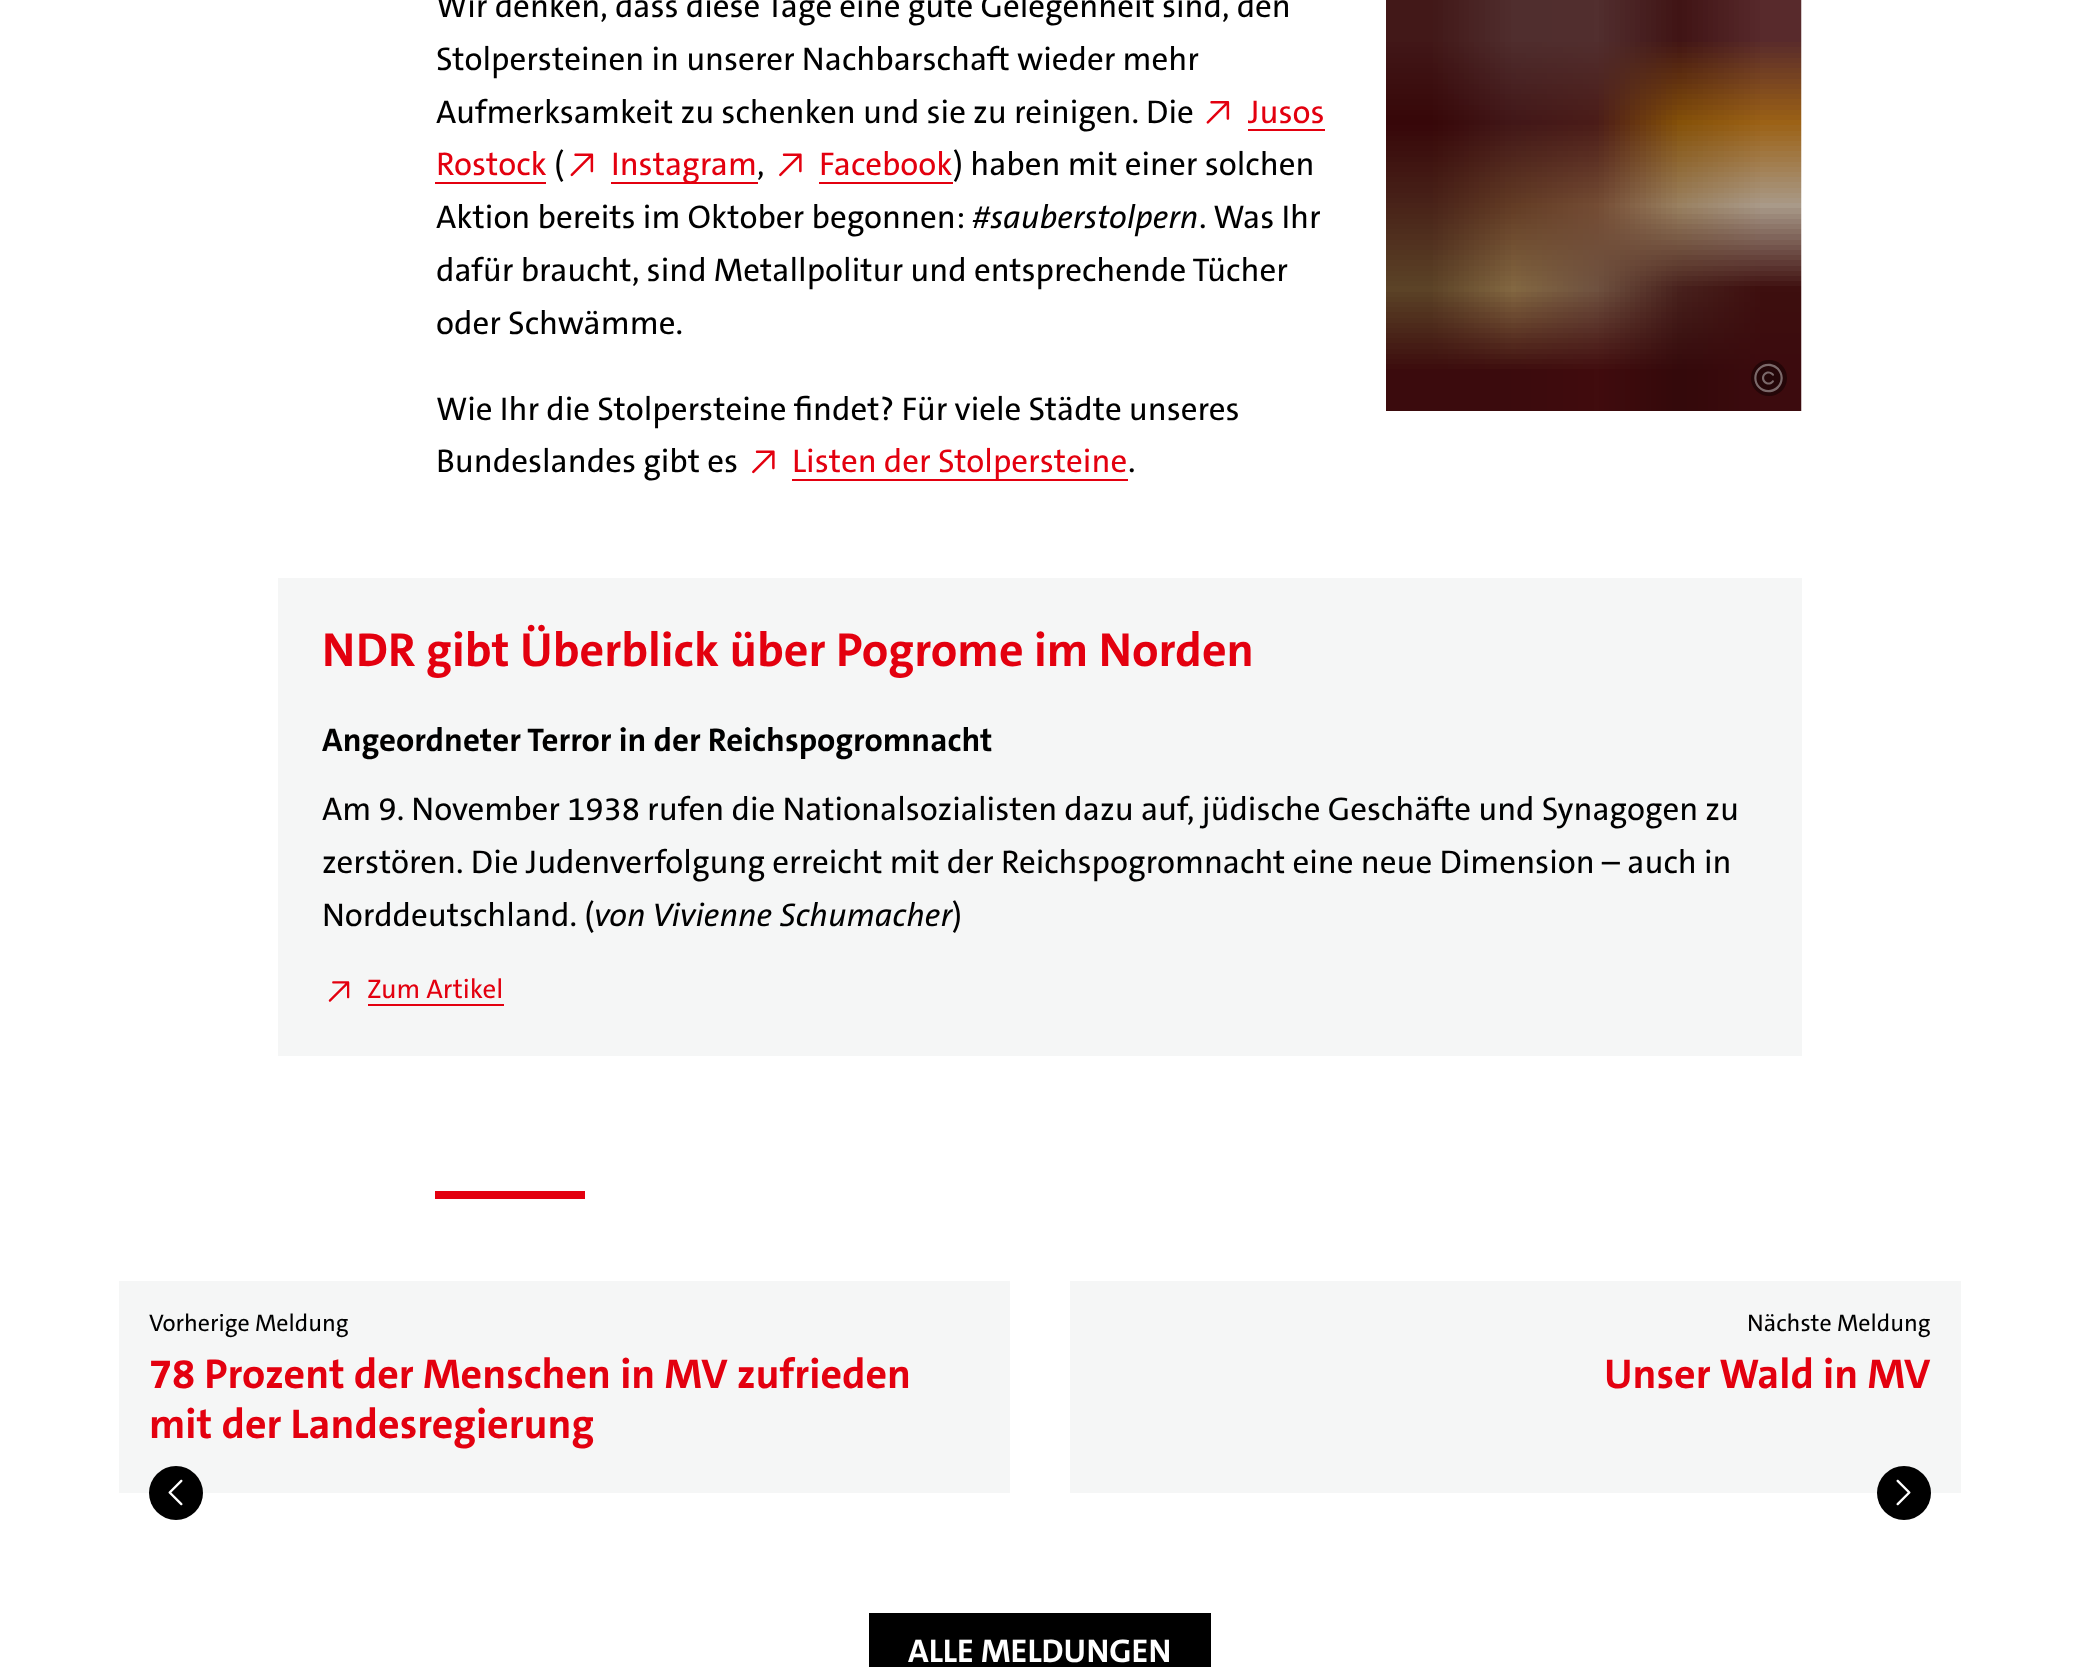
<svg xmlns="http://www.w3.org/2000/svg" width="2079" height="1667">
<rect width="100%" height="100%" fill="#fff"/>
<text x="436" y="17" style="font-family:'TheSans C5';font-size:33px;font-weight:500;fill:#000">Wir denken, dass diese Tage eine gute Gelegenheit sind, den</text>
<text x="436" y="70" style="font-family:'TheSans C5';font-size:33px;font-weight:500;fill:#000">Stolpersteinen in unserer Nachbarschaft wieder mehr</text>
<text x="436" y="123" style="font-family:'TheSans C5';font-size:33px;font-weight:500;fill:#000">Aufmerksamkeit zu schenken und sie zu reinigen. Die</text>
<image x="1206" y="101" width="24" height="23" href="media/1.png"/>
<text x="1248" y="123" style="font-family:'TheSans C5';font-size:33px;font-weight:500;fill:#e3000f">Jusos</text>
<rect x="1248" y="129" width="77" height="2" fill="#e3000f"/>
<text x="436" y="175" style="font-family:'TheSans C5';font-size:33px;font-weight:500;fill:#e3000f">Rostock</text>
<rect x="435" y="182" width="111" height="2" fill="#e3000f"/>
<text x="554" y="175" style="font-family:'TheSans C5';font-size:33px;font-weight:500;fill:#000">(</text>
<image x="570" y="153" width="24" height="24" href="media/2.png"/>
<rect x="611" y="182" width="147" height="2" fill="#e3000f"/>
<text x="611" y="175" style="font-family:'TheSans C5';font-size:33px;font-weight:500;fill:#e3000f">Instagram</text>
<text x="757" y="175" style="font-family:'TheSans C5';font-size:33px;font-weight:500;fill:#000">,</text>
<image x="779" y="153" width="23" height="24" href="media/3.png"/>
<text x="819" y="175" style="font-family:'TheSans C5';font-size:33px;font-weight:500;fill:#e3000f">Facebook</text>
<rect x="819" y="182" width="134" height="2" fill="#e3000f"/>
<text x="953" y="175" style="font-family:'TheSans C5';font-size:33px;font-weight:500;fill:#000">) haben mit einer solchen</text>
<text x="436" y="228" style="font-family:'TheSans C5';font-size:33px;font-weight:500;fill:#000">Aktion bereits im Oktober begonnen:</text>
<text x="972" y="228" style="font-family:'TheSans C5';font-size:33px;font-weight:500;font-style:italic;fill:#000">#sauberstolpern</text>
<text x="1199" y="228" style="font-family:'TheSans C5';font-size:33px;font-weight:500;fill:#000">. Was Ihr</text>
<text x="436" y="281" style="font-family:'TheSans C5';font-size:33px;font-weight:500;fill:#000">dafür braucht, sind Metallpolitur und entsprechende Tücher</text>
<text x="436" y="334" style="font-family:'TheSans C5';font-size:33px;font-weight:500;fill:#000">oder Schwämme.</text>
<text x="436" y="420" style="font-family:'TheSans C5';font-size:33px;font-weight:500;fill:#000">Wie Ihr die Stolpersteine findet? Für viele Städte unseres</text>
<text x="436" y="472" style="font-family:'TheSans C5';font-size:33px;font-weight:500;fill:#000">Bundeslandes gibt es</text>
<image x="752" y="450" width="23" height="24" href="media/4.png"/>
<rect x="792" y="479" width="336" height="2" fill="#e3000f"/>
<text x="792" y="472" style="font-family:'TheSans C5';font-size:33px;font-weight:500;fill:#e3000f">Listen der Stolpersteine</text>
<text x="1128" y="472" style="font-family:'TheSans C5';font-size:33px;font-weight:500;fill:#000">.</text>
<image x="1386" y="0" width="416" height="411" href="media/5.png"/>
<circle cx="1769" cy="378" r="18" fill="#240608"/>
<image x="1754" y="363" width="29" height="30" href="media/6.png"/>
<rect x="278" y="578" width="1524" height="478" fill="#f5f6f6"/>
<text x="322" y="666" style="font-family:'TheSans C5';font-size:48px;font-weight:bold;fill:#e3000f">NDR gibt Überblick über Pogrome im Norden</text>
<text x="322" y="751" style="font-family:'TheSans C5';font-size:33px;font-weight:bold;fill:#000">Angeordneter Terror in der Reichspogromnacht</text>
<text x="322" y="820" style="font-family:'TheSans C5';font-size:33px;font-weight:500;fill:#000">Am 9. November 1938 rufen die Nationalsozialisten dazu auf, jüdische Geschäfte und Synagogen zu</text>
<text x="322" y="873" style="font-family:'TheSans C5';font-size:33px;font-weight:500;fill:#000">zerstören. Die Judenverfolgung erreicht mit der Reichspogromnacht eine neue Dimension – auch in</text>
<text x="322" y="926" style="font-family:'TheSans C5';font-size:33px;font-weight:500;fill:#000">Norddeutschland. (</text>
<text x="594" y="926" style="font-family:'TheSans C5';font-size:33px;font-weight:500;font-style:italic;fill:#000">von Vivienne Schumacher</text>
<text x="952" y="926" style="font-family:'TheSans C5';font-size:33px;font-weight:500;fill:#000">)</text>
<image x="328" y="981" width="22" height="21" href="media/7.png"/>
<text x="367" y="998" style="font-family:'TheSans C5';font-size:27px;font-weight:500;fill:#e3000f">Zum Artikel</text>
<rect x="368" y="1004" width="136" height="2" fill="#e3000f"/>
<rect x="435" y="1191" width="150" height="8" fill="#e3000f"/>
<rect x="119" y="1281" width="891" height="212" fill="#f5f6f6"/>
<text x="149" y="1331" style="font-family:'TheSans C5';font-size:24px;font-weight:500;fill:#000">Vorherige Meldung</text>
<text x="149" y="1388" style="font-family:'TheSans C5';font-size:42px;font-weight:bold;fill:#e3000f">78 Prozent der Menschen in MV zufrieden</text>
<text x="149" y="1438" style="font-family:'TheSans C5';font-size:42px;font-weight:bold;fill:#e3000f">mit der Landesregierung</text>
<circle cx="176" cy="1493" r="27" fill="#000"/>
<image x="168" y="1479" width="15" height="27" href="media/8.png"/>
<rect x="1070" y="1281" width="891" height="212" fill="#f5f6f6"/>
<text x="1747" y="1331" style="font-family:'TheSans C5';font-size:24px;font-weight:500;fill:#000">Nächste Meldung</text>
<text x="1604" y="1388" style="font-family:'TheSans C5';font-size:42px;font-weight:bold;fill:#e3000f">Unser Wald in MV</text>
<circle cx="1904" cy="1493" r="27" fill="#000"/>
<image x="1896" y="1479" width="15" height="27" href="media/9.png"/>
<rect x="869" y="1613" width="342" height="54" fill="#000"/>
<text x="908" y="1662" style="font-family:'TheSans C5';font-size:33px;font-weight:bold;fill:#fff">ALLE MELDUNGEN</text>
</svg>
